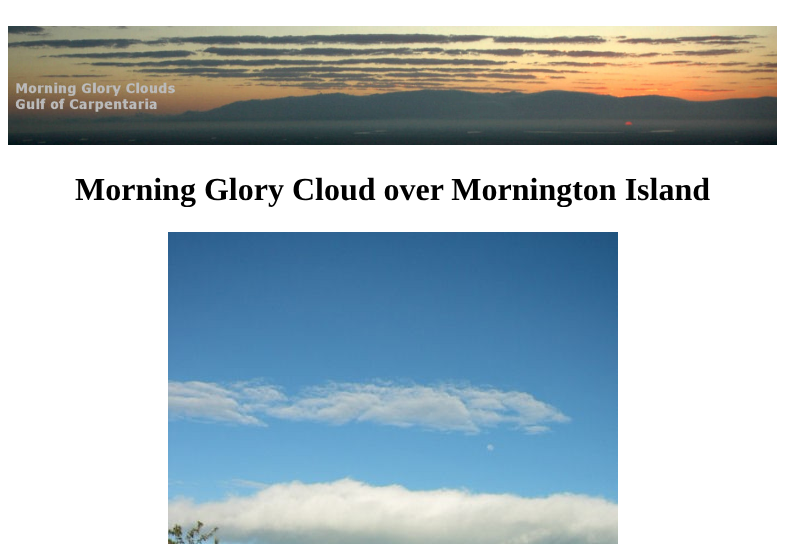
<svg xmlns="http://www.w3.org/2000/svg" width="785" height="544">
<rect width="100%" height="100%" fill="#fff"/>
<image x="8" y="26" width="769" height="119" href="media/1.png"/>
<text x="75" y="200" style="font-family:Liberation Serif;font-size:32px;font-weight:bold;fill:#000">Morning Glory Cloud over Mornington Island</text>
<image x="168" y="232" width="450" height="312" href="media/2.png"/>
</svg>
